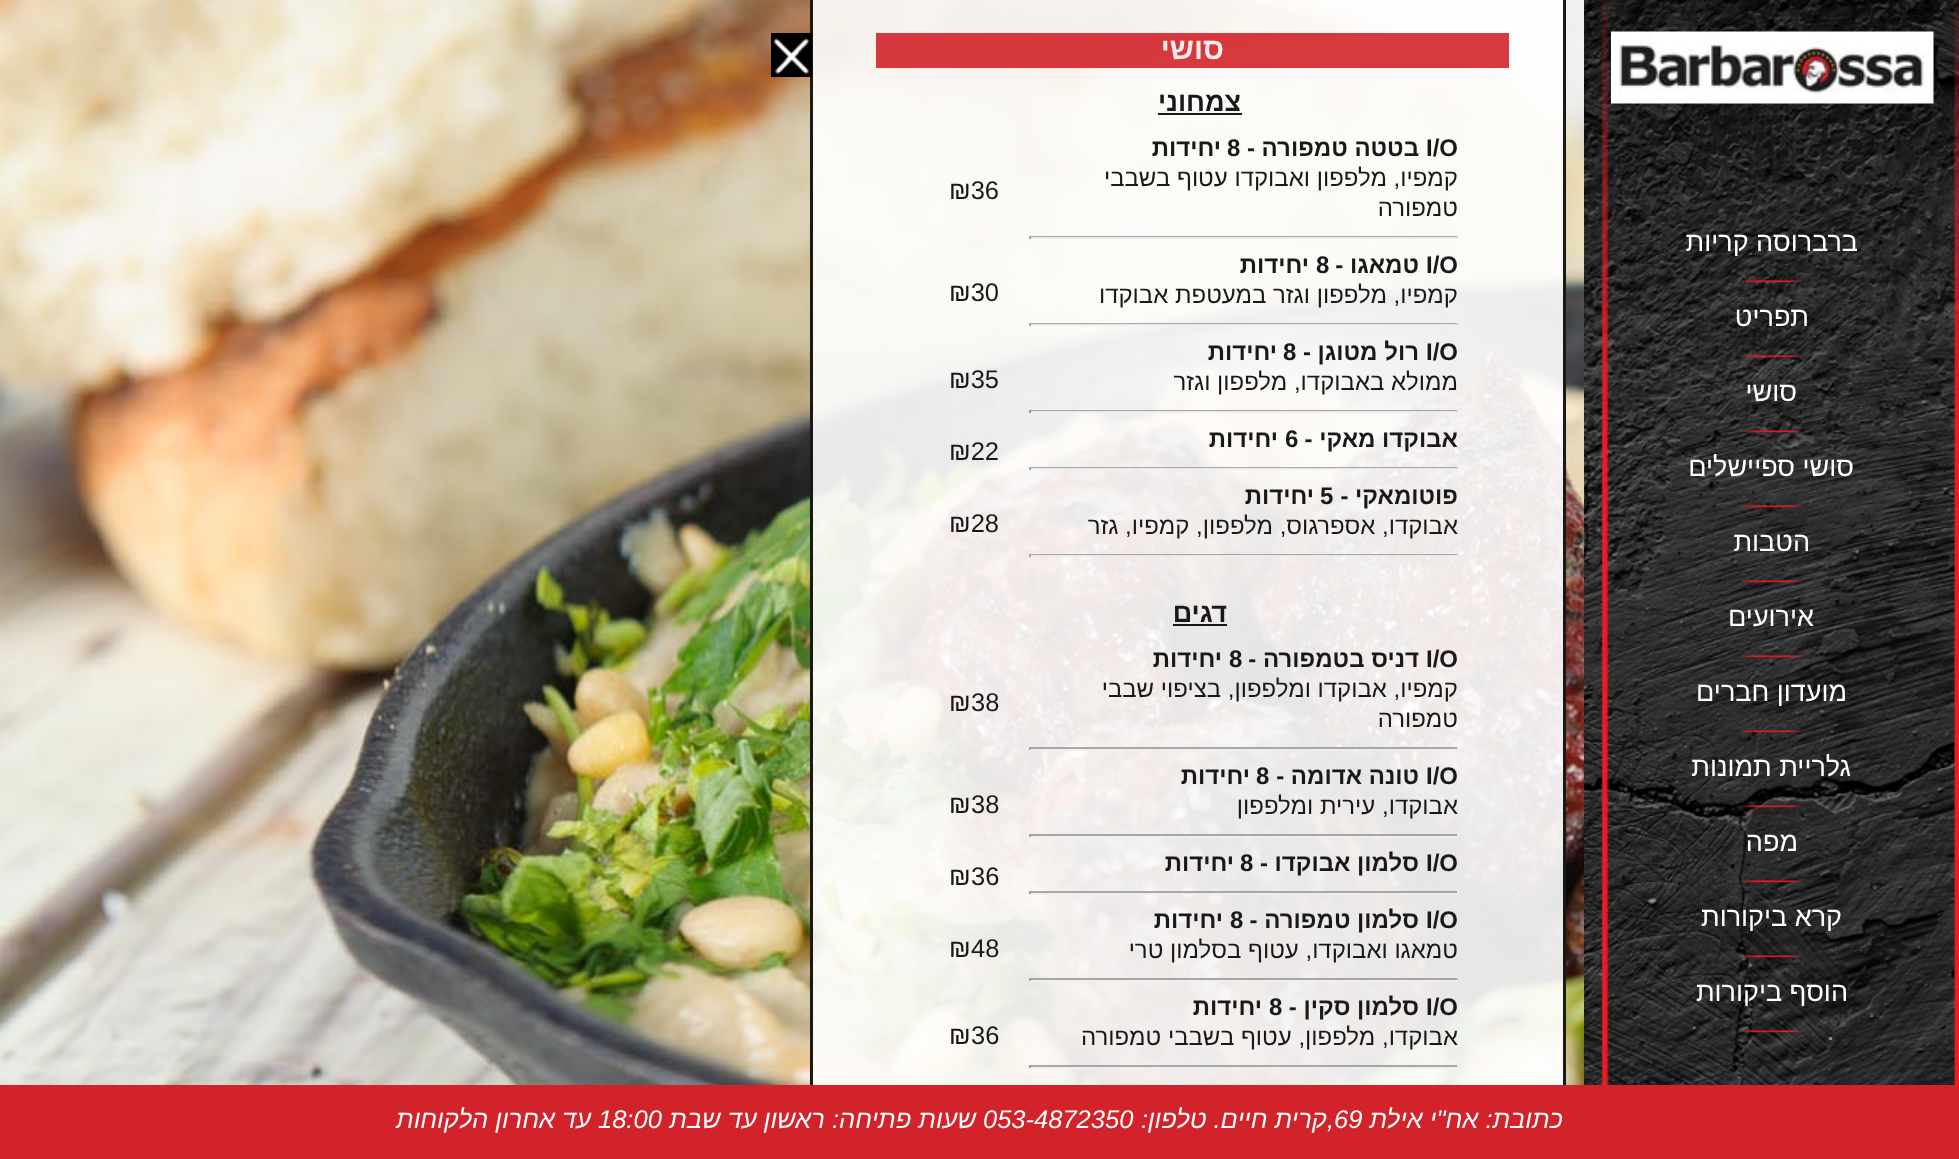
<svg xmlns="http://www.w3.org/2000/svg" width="1959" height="1159">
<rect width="100%" height="100%" fill="#fff"/>
<image x="0" y="0" width="1584" height="1085" href="media/1.png"/>
<image x="1584" y="0" width="375" height="1085" href="media/4.png"/>
<image x="1611" y="31" width="323" height="73" href="media/2.png"/>
<rect x="810" width="756" height="1085" fill="#ffffffe6"/>
<rect x="810" width="3" height="1085" fill="#000000e6"/>
<rect x="771" y="33" width="41" height="44" fill="#000"/>
<image x="773" y="38" width="36" height="36" href="media/3.png"/>
<image x="1741" y="280" width="61" height="3" href="media/5.png"/>
<text x="1858" y="251" style="font-family:Liberation Sans;font-size:27px;direction:rtl;fill:#fff">ברברוסה קריות</text>
<image x="1741" y="355" width="61" height="3" href="media/6.png"/>
<text x="1809" y="326" style="font-family:Liberation Sans;font-size:27px;direction:rtl;fill:#fff">תפריט</text>
<image x="1741" y="430" width="61" height="3" href="media/7.png"/>
<text x="1797" y="401" style="font-family:Liberation Sans;font-size:27px;direction:rtl;fill:#fff">סושי</text>
<image x="1741" y="505" width="61" height="3" href="media/8.png"/>
<text x="1854" y="476" style="font-family:Liberation Sans;font-size:27px;direction:rtl;fill:#fff">סושי ספיישלים</text>
<image x="1741" y="580" width="61" height="3" href="media/9.png"/>
<text x="1810" y="551" style="font-family:Liberation Sans;font-size:27px;direction:rtl;fill:#fff">הטבות</text>
<image x="1741" y="655" width="61" height="3" href="media/10.png"/>
<text x="1814" y="626" style="font-family:Liberation Sans;font-size:27px;direction:rtl;fill:#fff">אירועים</text>
<image x="1741" y="730" width="61" height="3" href="media/11.png"/>
<text x="1847" y="701" style="font-family:Liberation Sans;font-size:27px;direction:rtl;fill:#fff">מועדון חברים</text>
<image x="1741" y="805" width="61" height="3" href="media/12.png"/>
<text x="1851" y="776" style="font-family:Liberation Sans;font-size:27px;direction:rtl;fill:#fff">גלריית תמונות</text>
<image x="1741" y="880" width="61" height="3" href="media/13.png"/>
<text x="1798" y="851" style="font-family:Liberation Sans;font-size:27px;direction:rtl;fill:#fff">מפה</text>
<image x="1741" y="955" width="61" height="3" href="media/14.png"/>
<text x="1842" y="926" style="font-family:Liberation Sans;font-size:27px;direction:rtl;fill:#fff">קרא ביקורות</text>
<image x="1741" y="1030" width="61" height="3" href="media/15.png"/>
<text x="1848" y="1001" style="font-family:Liberation Sans;font-size:27px;direction:rtl;fill:#fff">הוסף ביקורות</text>
<rect x="1563" width="3" height="1085" fill="#000000e6"/>
<rect x="876" y="33" width="633" height="35" fill="#d2232ae6"/>
<text x="1224" y="59" style="font-family:Liberation Sans;font-size:30px;font-weight:bold;direction:rtl;fill:#fbebec">סושי</text>
<text x="1241" y="111" style="font-family:Liberation Sans;font-size:27px;font-weight:bold;direction:rtl;fill:#191919">צמחוני</text>
<rect x="1158" y="113" width="84" height="2" fill="#191919"/>
<text x="1426" y="156" style="font-family:Liberation Sans;font-size:24px;font-weight:bold;fill:#191919">I/O</text>
<text x="1419" y="156" style="font-family:Liberation Sans;font-size:24px;font-weight:bold;direction:rtl;fill:#191919">בטטה טמפורה -</text>
<text x="1227" y="156" style="font-family:Liberation Sans;font-size:24px;font-weight:bold;fill:#191919">8</text>
<text x="1221" y="156" style="font-family:Liberation Sans;font-size:24px;font-weight:bold;direction:rtl;fill:#191919">יחידות</text>
<text x="1458" y="186" style="font-family:Liberation Sans;font-size:24px;direction:rtl;fill:#191919">קמפיו, מלפפון ואבוקדו עטוף בשבבי</text>
<text x="1458" y="216" style="font-family:Liberation Sans;font-size:24px;direction:rtl;fill:#191919">טמפורה</text>
<rect x="1029" y="236" width="429" height="2" fill="#9f9f9fe6"/>
<rect x="1457" y="236" width="2" height="3" fill="#eeeeeee6"/>
<rect x="1029" y="237" width="429" height="2" fill="#eeeeeee6"/>
<rect x="1029" y="236" width="2" height="3" fill="#a5a39f"/>
<text x="949" y="199" style="font-family:Liberation Sans;font-size:25.5px;fill:#191919">₪36</text>
<text x="1426" y="273" style="font-family:Liberation Sans;font-size:24px;font-weight:bold;fill:#191919">I/O</text>
<text x="1419" y="273" style="font-family:Liberation Sans;font-size:24px;font-weight:bold;direction:rtl;fill:#191919">טמאגו -</text>
<text x="1316" y="273" style="font-family:Liberation Sans;font-size:24px;font-weight:bold;fill:#191919">8</text>
<text x="1309" y="273" style="font-family:Liberation Sans;font-size:24px;font-weight:bold;direction:rtl;fill:#191919">יחידות</text>
<text x="1458" y="303" style="font-family:Liberation Sans;font-size:24px;direction:rtl;fill:#191919">קמפיו, מלפפון וגזר במעטפת אבוקדו</text>
<rect x="1029" y="323" width="429" height="2" fill="#9f9f9fe6"/>
<rect x="1457" y="323" width="2" height="3" fill="#e0e0e0"/>
<rect x="1029" y="324" width="429" height="2" fill="#eeeeeee6"/>
<rect x="1029" y="323" width="2" height="3" fill="#9f9f9fe6"/>
<text x="949" y="301" style="font-family:Liberation Sans;font-size:25.5px;fill:#191919">₪30</text>
<text x="1426" y="360" style="font-family:Liberation Sans;font-size:24px;font-weight:bold;fill:#191919">I/O</text>
<text x="1419" y="360" style="font-family:Liberation Sans;font-size:24px;font-weight:bold;direction:rtl;fill:#191919">רול מטוגן -</text>
<text x="1283" y="360" style="font-family:Liberation Sans;font-size:24px;font-weight:bold;fill:#191919">8</text>
<text x="1277" y="360" style="font-family:Liberation Sans;font-size:24px;font-weight:bold;direction:rtl;fill:#191919">יחידות</text>
<text x="1458" y="390" style="font-family:Liberation Sans;font-size:24px;direction:rtl;fill:#191919">ממולא באבוקדו, מלפפון וגזר</text>
<rect x="1029" y="410" width="429" height="2" fill="#9f9f9fe6"/>
<rect x="1457" y="410" width="2" height="3" fill="#eeeeeee6"/>
<rect x="1029" y="411" width="429" height="2" fill="#eeeeeee6"/>
<rect x="1029" y="410" width="2" height="3" fill="#979899"/>
<text x="949" y="388" style="font-family:Liberation Sans;font-size:25.5px;fill:#191919">₪35</text>
<text x="1458" y="447" style="font-family:Liberation Sans;font-size:24px;font-weight:bold;direction:rtl;fill:#191919">אבוקדו מאקי -</text>
<text x="1285" y="447" style="font-family:Liberation Sans;font-size:24px;font-weight:bold;fill:#191919">6</text>
<text x="1278" y="447" style="font-family:Liberation Sans;font-size:24px;font-weight:bold;direction:rtl;fill:#191919">יחידות</text>
<rect x="1029" y="467" width="429" height="2" fill="#9f9f9fe6"/>
<rect x="1457" y="467" width="2" height="3" fill="#eeeeeee6"/>
<rect x="1029" y="468" width="429" height="2" fill="#eeeeeee6"/>
<rect x="1029" y="467" width="2" height="3" fill="#9f9f9fe6"/>
<text x="949" y="460" style="font-family:Liberation Sans;font-size:25.5px;fill:#191919">₪22</text>
<text x="1458" y="504" style="font-family:Liberation Sans;font-size:24px;font-weight:bold;direction:rtl;fill:#191919">פוטומאקי -</text>
<text x="1320" y="504" style="font-family:Liberation Sans;font-size:24px;font-weight:bold;fill:#191919">5</text>
<text x="1314" y="504" style="font-family:Liberation Sans;font-size:24px;font-weight:bold;direction:rtl;fill:#191919">יחידות</text>
<text x="1458" y="534" style="font-family:Liberation Sans;font-size:24px;direction:rtl;fill:#191919">אבוקדו, אספרגוס, מלפפון, קמפיו, גזר</text>
<rect x="1029" y="554" width="429" height="2" fill="#9f9f9fe6"/>
<rect x="1457" y="554" width="2" height="3" fill="#eeeeeee6"/>
<rect x="1029" y="555" width="429" height="2" fill="#eeeeeee6"/>
<rect x="1029" y="554" width="2" height="3" fill="#9f9f9fe6"/>
<text x="949" y="532" style="font-family:Liberation Sans;font-size:25.5px;fill:#191919">₪28</text>
<text x="1227" y="622" style="font-family:Liberation Sans;font-size:27px;font-weight:bold;direction:rtl;fill:#191919">דגים</text>
<rect x="1173" y="624" width="54" height="2" fill="#000000e6"/>
<text x="1426" y="667" style="font-family:Liberation Sans;font-size:24px;font-weight:bold;fill:#191919">I/O</text>
<text x="1419" y="667" style="font-family:Liberation Sans;font-size:24px;font-weight:bold;direction:rtl;fill:#191919">דניס בטמפורה -</text>
<text x="1229" y="667" style="font-family:Liberation Sans;font-size:24px;font-weight:bold;fill:#191919">8</text>
<text x="1222" y="667" style="font-family:Liberation Sans;font-size:24px;font-weight:bold;direction:rtl;fill:#191919">יחידות</text>
<text x="1458" y="697" style="font-family:Liberation Sans;font-size:24px;direction:rtl;fill:#191919">קמפיו, אבוקדו ומלפפון, בציפוי שבבי</text>
<text x="1458" y="727" style="font-family:Liberation Sans;font-size:24px;direction:rtl;fill:#191919">טמפורה</text>
<rect x="1029" y="747" width="429" height="2" fill="#9f9f9fe6"/>
<rect x="1457" y="747" width="2" height="3" fill="#eeeeeee6"/>
<rect x="1029" y="749" width="429" height="2" fill="#eeeeeee6"/>
<rect x="1029" y="747" width="2" height="3" fill="#9f9f9fe6"/>
<text x="971" y="711" style="font-family:Liberation Sans;font-size:25.5px;fill:#191919">38</text>
<text x="949" y="711" style="font-family:Liberation Sans;font-size:25.5px;fill:#191919">₪</text>
<text x="1426" y="784" style="font-family:Liberation Sans;font-size:24px;font-weight:bold;fill:#191919">I/O</text>
<text x="1419" y="784" style="font-family:Liberation Sans;font-size:24px;font-weight:bold;direction:rtl;fill:#191919">טונה אדומה -</text>
<text x="1256" y="784" style="font-family:Liberation Sans;font-size:24px;font-weight:bold;fill:#191919">8</text>
<text x="1250" y="784" style="font-family:Liberation Sans;font-size:24px;font-weight:bold;direction:rtl;fill:#191919">יחידות</text>
<text x="1458" y="814" style="font-family:Liberation Sans;font-size:24px;direction:rtl;fill:#191919">אבוקדו, עירית ומלפפון</text>
<rect x="1029" y="834" width="429" height="2" fill="#9f9f9fe6"/>
<rect x="1457" y="834" width="2" height="3" fill="#eeeeeee6"/>
<rect x="1029" y="836" width="429" height="2" fill="#eeeeeee6"/>
<rect x="1029" y="834" width="2" height="3" fill="#9f9f9fe6"/>
<text x="971" y="813" style="font-family:Liberation Sans;font-size:25.5px;fill:#191919">38</text>
<text x="949" y="813" style="font-family:Liberation Sans;font-size:25.5px;fill:#191919">₪</text>
<text x="1426" y="871" style="font-family:Liberation Sans;font-size:24px;font-weight:bold;fill:#191919">I/O</text>
<text x="1419" y="871" style="font-family:Liberation Sans;font-size:24px;font-weight:bold;direction:rtl;fill:#191919">סלמון אבוקדו -</text>
<text x="1240" y="871" style="font-family:Liberation Sans;font-size:24px;font-weight:bold;fill:#191919">8</text>
<text x="1234" y="871" style="font-family:Liberation Sans;font-size:24px;font-weight:bold;direction:rtl;fill:#191919">יחידות</text>
<rect x="1029" y="891" width="429" height="2" fill="#9f9f9fe6"/>
<rect x="1457" y="891" width="2" height="3" fill="#eeeeeee6"/>
<rect x="1029" y="893" width="429" height="2" fill="#eeeeeee6"/>
<rect x="1029" y="891" width="2" height="3" fill="#a4a29e"/>
<text x="971" y="885" style="font-family:Liberation Sans;font-size:25.5px;fill:#191919">36</text>
<text x="949" y="885" style="font-family:Liberation Sans;font-size:25.5px;fill:#191919">₪</text>
<text x="1426" y="928" style="font-family:Liberation Sans;font-size:24px;font-weight:bold;fill:#191919">I/O</text>
<text x="1419" y="928" style="font-family:Liberation Sans;font-size:24px;font-weight:bold;direction:rtl;fill:#191919">סלמון טמפורה -</text>
<text x="1230" y="928" style="font-family:Liberation Sans;font-size:24px;font-weight:bold;fill:#191919">8</text>
<text x="1223" y="928" style="font-family:Liberation Sans;font-size:24px;font-weight:bold;direction:rtl;fill:#191919">יחידות</text>
<text x="1458" y="958" style="font-family:Liberation Sans;font-size:24px;direction:rtl;fill:#191919">טמאגו ואבוקדו, עטוף בסלמון טרי</text>
<rect x="1029" y="978" width="429" height="2" fill="#9f9f9fe6"/>
<rect x="1457" y="978" width="2" height="3" fill="#d8d7d7"/>
<rect x="1029" y="980" width="429" height="2" fill="#eeeeeee6"/>
<rect x="1029" y="978" width="2" height="3" fill="#9f9f9fe6"/>
<text x="971" y="957" style="font-family:Liberation Sans;font-size:25.5px;fill:#191919">48</text>
<text x="949" y="957" style="font-family:Liberation Sans;font-size:25.5px;fill:#191919">₪</text>
<text x="1426" y="1015" style="font-family:Liberation Sans;font-size:24px;font-weight:bold;fill:#191919">I/O</text>
<text x="1419" y="1015" style="font-family:Liberation Sans;font-size:24px;font-weight:bold;direction:rtl;fill:#191919">סלמון סקין -</text>
<text x="1269" y="1015" style="font-family:Liberation Sans;font-size:24px;font-weight:bold;fill:#191919">8</text>
<text x="1262" y="1015" style="font-family:Liberation Sans;font-size:24px;font-weight:bold;direction:rtl;fill:#191919">יחידות</text>
<text x="1458" y="1045" style="font-family:Liberation Sans;font-size:24px;direction:rtl;fill:#191919">אבוקדו, מלפפון, עטוף בשבבי טמפורה</text>
<rect x="1029" y="1065" width="429" height="2" fill="#9f9f9fe6"/>
<rect x="1457" y="1065" width="2" height="3" fill="#eeeeeee6"/>
<rect x="1029" y="1067" width="429" height="2" fill="#eeeeeee6"/>
<rect x="1029" y="1065" width="2" height="3" fill="#9f9f9fe6"/>
<text x="971" y="1044" style="font-family:Liberation Sans;font-size:25.5px;fill:#191919">36</text>
<text x="949" y="1044" style="font-family:Liberation Sans;font-size:25.5px;fill:#191919">₪</text>
<rect x="1829" y="1037" width="3" height="3" fill="#888"/>
<rect y="1085" width="1959" height="74" fill="#d2232a"/>
<text x="1563" y="1128" style="font-family:Liberation Sans;font-size:25.5px;font-style:italic;direction:rtl;fill:#fff">כתובת: אח"י אילת</text>
<text x="1334" y="1128" style="font-family:Liberation Sans;font-size:25.5px;font-style:italic;fill:#fff">69</text>
<text x="1334" y="1128" style="font-family:Liberation Sans;font-size:25.5px;font-style:italic;direction:rtl;fill:#fff">,קרית חיים. טלפון:</text>
<text x="983" y="1128" style="font-family:Liberation Sans;font-size:25.5px;font-style:italic;fill:#fff">053-4872350</text>
<text x="976" y="1128" style="font-family:Liberation Sans;font-size:25.5px;font-style:italic;direction:rtl;fill:#fff">שעות פתיחה: ראשון עד שבת</text>
<text x="598" y="1128" style="font-family:Liberation Sans;font-size:25.5px;font-style:italic;fill:#fff">18:00</text>
<text x="591" y="1128" style="font-family:Liberation Sans;font-size:25.5px;font-style:italic;direction:rtl;fill:#fff">עד אחרון הלקוחות</text>
</svg>
